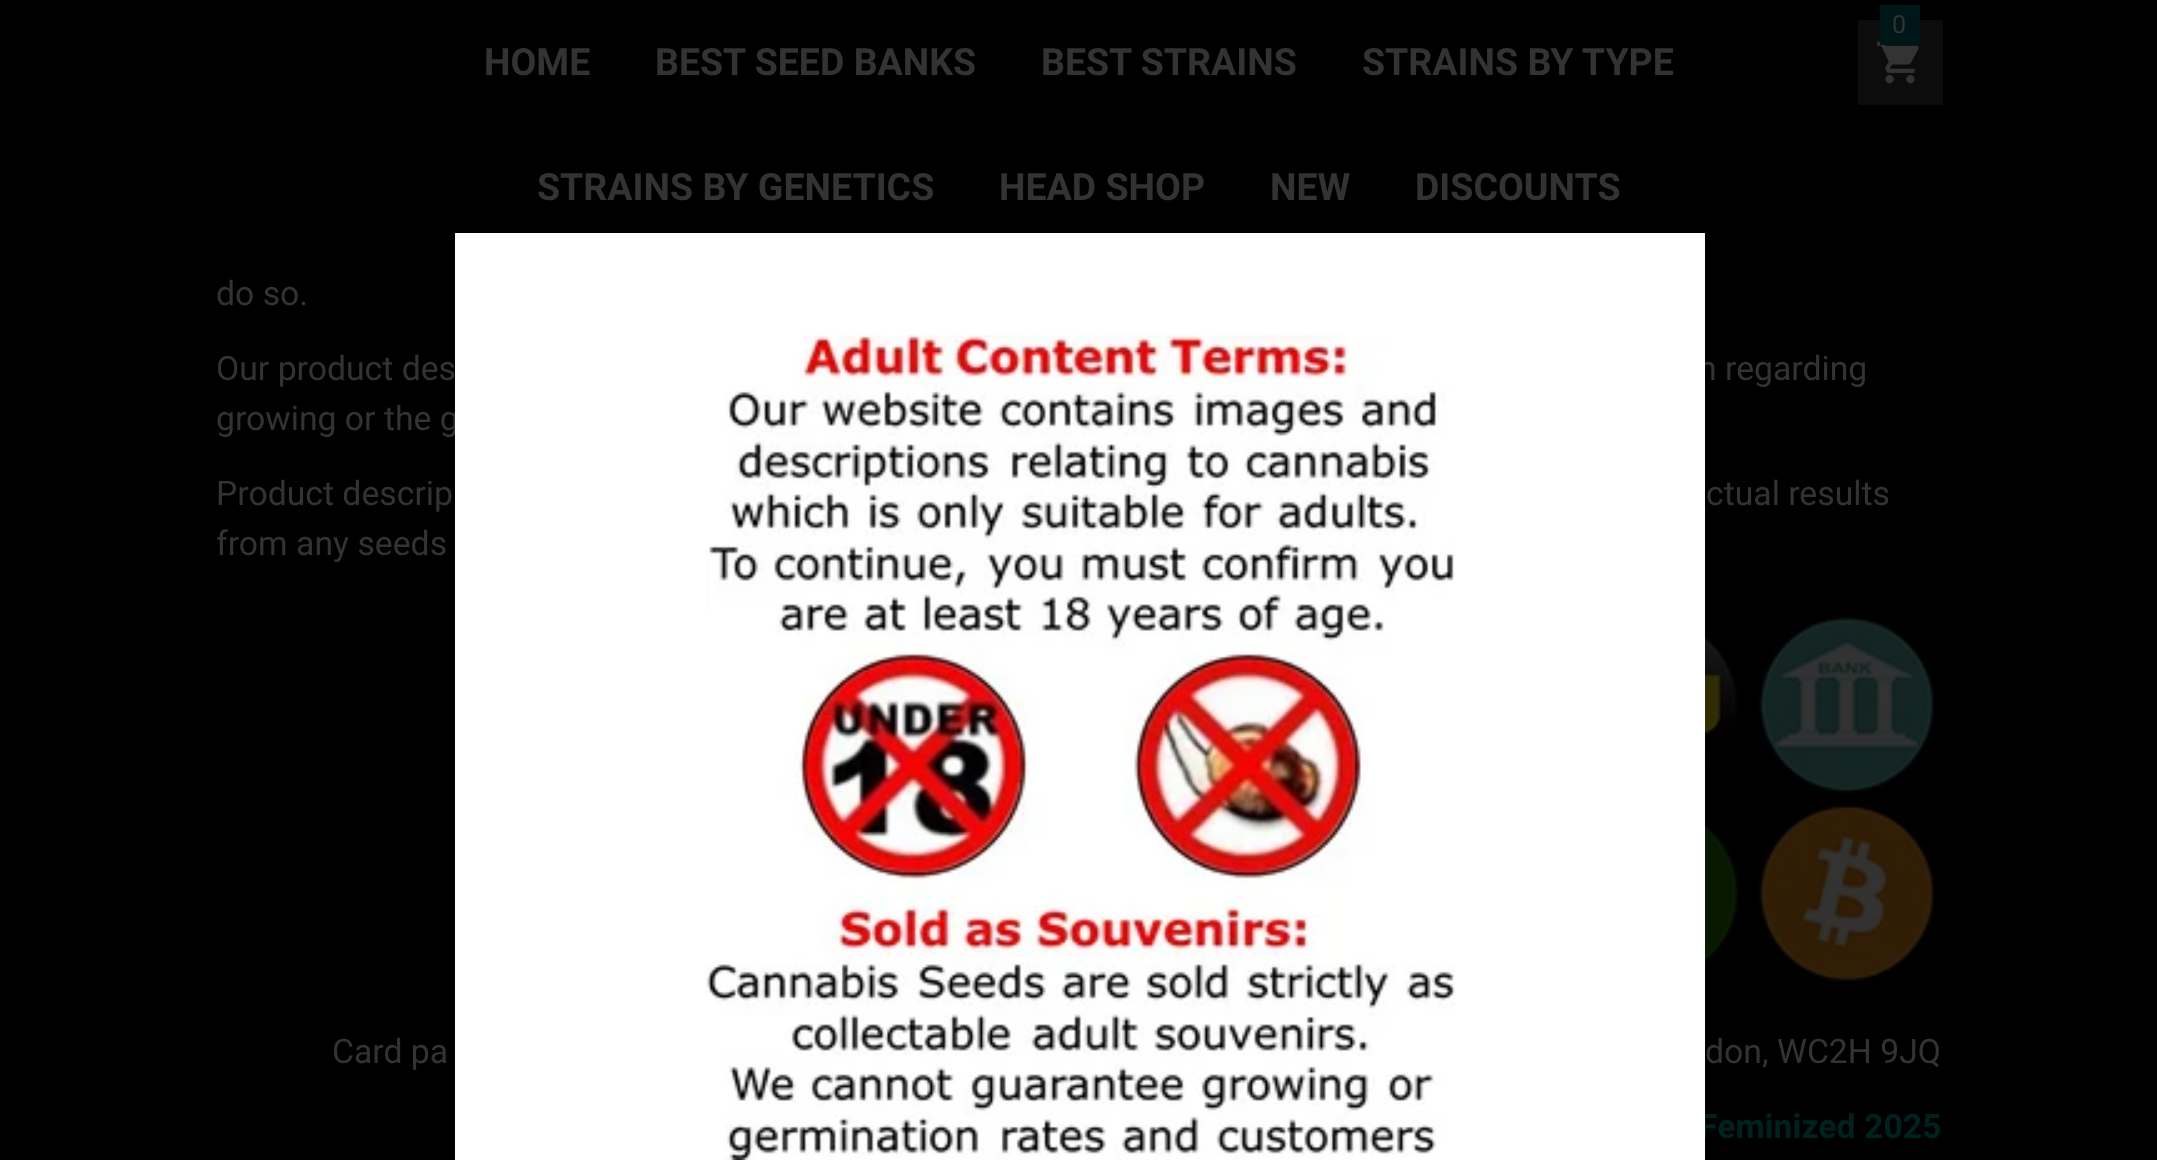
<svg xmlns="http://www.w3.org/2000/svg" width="2157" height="1160">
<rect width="100%" height="100%" fill="#000"/>
<rect x="1858" y="20" width="85" height="85" fill="#0c0c0c"/>
<image x="1877" y="41" width="42" height="43" href="media/1.png"/>
<rect x="1880" y="5" width="40" height="40" fill="#00171a"/>
<text x="1892" y="33" style="font-family:Roboto;font-size:25px;fill:#333">0</text>
<text x="484" y="75" style="font-family:'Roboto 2';font-size:37.5px;font-weight:bold;fill:#333">HOME</text>
<text x="655" y="75" style="font-family:'Roboto 2';font-size:37.5px;font-weight:bold;fill:#333">BEST SEED BANKS</text>
<text x="1041" y="75" style="font-family:'Roboto 2';font-size:37.5px;font-weight:bold;fill:#333">BEST STRAINS</text>
<text x="1362" y="75" style="font-family:'Roboto 2';font-size:37.5px;font-weight:bold;fill:#333">STRAINS BY TYPE</text>
<text x="537" y="200" style="font-family:'Roboto 2';font-size:37.5px;font-weight:bold;fill:#333">STRAINS BY GENETICS</text>
<text x="999" y="200" style="font-family:'Roboto 2';font-size:37.5px;font-weight:bold;fill:#333">HEAD SHOP</text>
<text x="1270" y="200" style="font-family:'Roboto 2';font-size:37.5px;font-weight:bold;fill:#333">NEW</text>
<text x="1415" y="200" style="font-family:'Roboto 2';font-size:37.5px;font-weight:bold;fill:#333">DISCOUNTS</text>
<text x="1698" y="380" style="font-family:Roboto;font-size:33.75px;fill:#333">n regarding</text>
<text x="216" y="430" style="font-family:Roboto;font-size:33.75px;fill:#333">growing or the g</text>
<text x="1699" y="1138" style="font-family:Roboto;font-size:33.75px;font-weight:bold;fill:#00221e">Feminized 2025</text>
<rect x="455" y="233" width="1250" height="927" fill="#fff"/>
<image x="705" y="334" width="750" height="826" href="media/2.png"/>
<text x="216" y="305" style="font-family:Roboto;font-size:33.75px;fill:#333">do so.</text>
<text x="216" y="380" style="font-family:Roboto;font-size:33.75px;fill:#333">Our product des</text>
<text x="216" y="505" style="font-family:Roboto;font-size:33.75px;fill:#333">Product descrip</text>
<text x="1706" y="505" style="font-family:Roboto;font-size:33.75px;fill:#333">ctual results</text>
<text x="216" y="555" style="font-family:Roboto;font-size:33.75px;fill:#333">from any seeds</text>
<image x="1705" y="601" width="231" height="391" href="media/3.png"/>
<text x="332" y="1063" style="font-family:Roboto;font-size:33.75px;fill:#333">Card pa</text>
<text x="1705" y="1063" style="font-family:Roboto;font-size:33.75px;fill:#333">don, WC2H 9JQ</text>
</svg>
